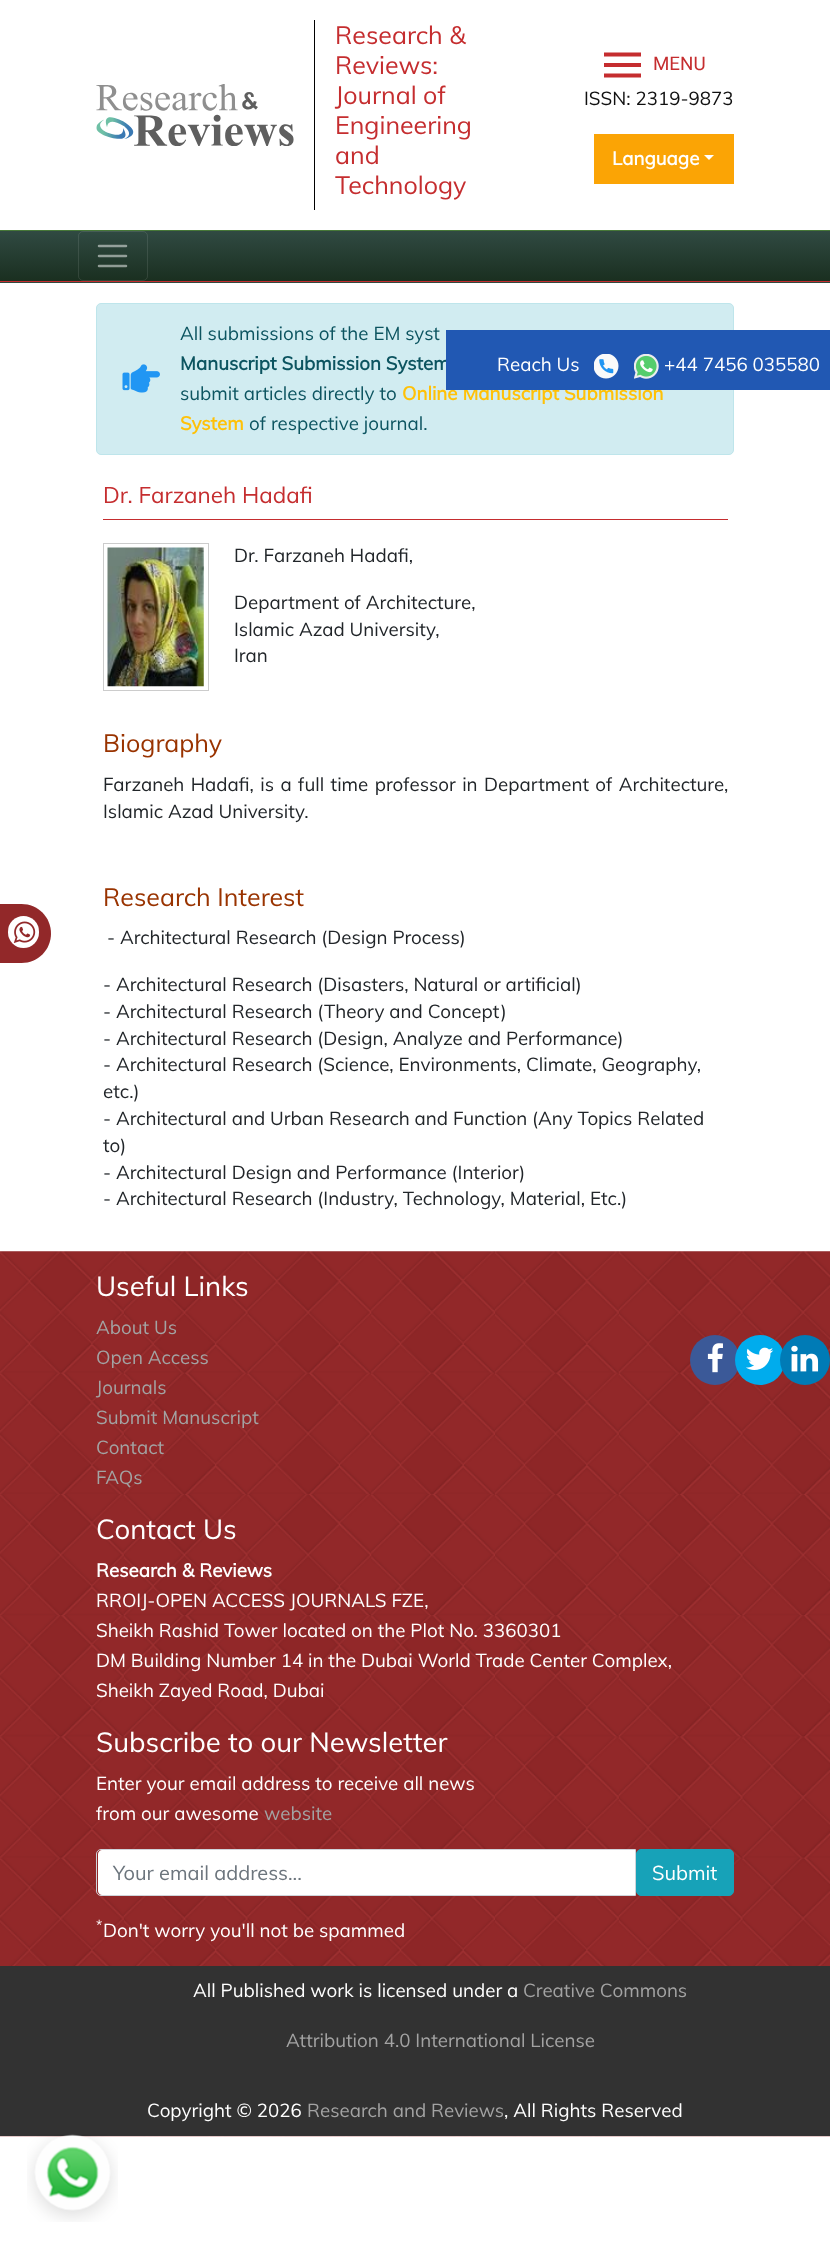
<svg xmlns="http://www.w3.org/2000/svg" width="830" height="2244">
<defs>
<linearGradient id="g1" gradientUnits="userSpaceOnUse" x1="415" y1="231" x2="415" y2="281"><stop offset="0" stop-color="#304a42"/><stop offset="1" stop-color="#1a2f20"/></linearGradient>
<linearGradient id="g2" gradientUnits="userSpaceOnUse" x1="415" y1="281" x2="415" y2="331"><stop offset="0" stop-color="#304a42"/><stop offset="1" stop-color="#1a2f20"/></linearGradient>
</defs>
<rect width="100%" height="100%" fill="#fff"/>
<image x="96" y="84" width="198" height="62" href="media/1.png"/>
<rect x="314" y="20" width="1" height="190" fill="#000"/>
<text x="335" y="44" style="font-family:Muli;font-size:25px;fill:#c52d2f">Research &amp;</text>
<text x="335" y="74" style="font-family:Muli;font-size:25px;fill:#c52d2f">Reviews:</text>
<text x="335" y="104" style="font-family:Muli;font-size:25px;fill:#c52d2f">Journal of</text>
<text x="335" y="134" style="font-family:Muli;font-size:25px;fill:#c52d2f">Engineering</text>
<text x="335" y="164" style="font-family:Muli;font-size:25px;fill:#c52d2f">and</text>
<text x="335" y="194" style="font-family:Muli;font-size:25px;fill:#c52d2f">Technology</text>
<text x="653" y="70" style="font-family:Roboto;font-size:18.75px;fill:#c52d2f">MENU</text>
<path d="M604 77.5h37v-4h-37zm0-10.5h37v-4h-37zm0-14.5v4h37v-4z" fill="#c52d2f"/>
<text x="584" y="105" style="font-family:Muli;font-size:18.75px;fill:#101010">ISSN: 2319-9873</text>
<rect x="594" y="134" width="140" height="50" fill="#fba405"/>
<text x="612" y="165" style="font-family:Muli;font-size:18.75px;font-weight:bold;fill:#fff">Language</text>
<path d="M704 155h10l-5 5z" fill="#fff"/>
<rect y="231" width="830" height="50" fill="url(#g1)"/>
<rect y="282" width="830" height="1" fill="url(#g2)"/>
<rect y="230" width="830" height="1" fill="#467837"/>
<rect y="281" width="830" height="1" fill="#c52d2f"/>
<rect x="78.5" y="231.5" width="69" height="49" rx="4.5" fill="none" stroke="#ffffff1a"/>
<path d="M99 246h27m-27 10h27m-27 10h27" fill="none" stroke="#ffffff80" stroke-width="2.5" stroke-linecap="round"/>
<rect x="96.5" y="303.5" width="637" height="151" rx="4.5" fill="#d1ecf1" stroke="#bee5eb"/>
<image x="122" y="364" width="38" height="29" href="media/2.png"/>
<text x="180" y="340" style="font-family:Muli;font-size:18.75px;fill:#0c5460">All submissions of the EM syst</text>
<text x="180" y="370" style="font-family:Muli;font-size:18.75px;font-weight:bold;fill:#0c5460">Manuscript Submission System</text>
<text x="180" y="400" style="font-family:Muli;font-size:18.75px;fill:#0c5460">submit articles directly to</text>
<text x="402" y="400" style="font-family:Muli;font-size:18.75px;font-weight:bold;fill:#ffc107">Online Manuscript Submission</text>
<text x="180" y="430" style="font-family:Muli;font-size:18.75px;font-weight:bold;fill:#ffc107">System</text>
<text x="249" y="430" style="font-family:Muli;font-size:18.75px;fill:#0c5460">of respective journal.</text>
<rect x="446" y="330" width="384" height="60" fill="#2158b3"/>
<text x="497" y="371" style="font-family:Muli;font-size:18.75px;fill:#fff">Reach Us</text>
<image x="594" y="354" width="25" height="25" href="media/3.png"/>
<image x="634" y="354" width="25" height="25" href="media/4.png"/>
<text x="664" y="371" style="font-family:Muli;font-size:18.75px;fill:#fff">+44 7456 035580</text>
<path d="M-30 904h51.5c16.5 0 29.5 13 29.5 29.5c0 16.5-13 29.5-29.5 29.5h-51.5z" fill="#922829"/>
<rect x="8" y="916" width="31" height="32" rx="15.5" fill="#fff"/>
<image x="13" y="921" width="23" height="22" href="media/5.png"/>
<rect x="103" y="519" width="625" height="1" fill="#c52d2f"/>
<text x="103" y="503" style="font-family:Muli;font-size:22.5px;fill:#c52d2f">Dr. Farzaneh Hadafi</text>
<rect x="103.5" y="543.5" width="105" height="147" fill="none" stroke="#ccc"/>
<image x="107" y="547" width="97" height="140" href="media/6.png"/>
<text x="234" y="562" style="font-family:Muli;font-size:18.75px;fill:#212529">Dr. Farzaneh Hadafi,</text>
<text x="234" y="609" style="font-family:Muli;font-size:18.75px;fill:#212529">Department of Architecture,</text>
<text x="234" y="636" style="font-family:Muli;font-size:18.75px;fill:#212529">Islamic Azad University,</text>
<text x="234" y="662" style="font-family:Muli;font-size:18.75px;fill:#212529">Iran</text>
<text x="103" y="752" style="font-family:Muli;font-size:25px;fill:#930">Biography</text>
<text x="103" y="791" word-spacing="1.5" style="font-family:Muli;font-size:18.75px;fill:#212529">Farzaneh Hadafi, is a full time professor in Department of Architecture,</text>
<text x="103" y="818" style="font-family:Muli;font-size:18.75px;fill:#212529">Islamic Azad University.</text>
<text x="103" y="906" style="font-family:Muli;font-size:25px;fill:#930">Research Interest</text>
<text x="107" y="944" style="font-family:Muli;font-size:18.75px;fill:#212529">- Architectural Research (Design Process)</text>
<text x="103" y="991" style="font-family:Muli;font-size:18.75px;fill:#212529">- Architectural Research (Disasters, Natural or artificial)</text>
<text x="103" y="1018" style="font-family:Muli;font-size:18.75px;fill:#212529">- Architectural Research (Theory and Concept)</text>
<text x="103" y="1045" style="font-family:Muli;font-size:18.75px;fill:#212529">- Architectural Research (Design, Analyze and Performance)</text>
<text x="103" y="1071" style="font-family:Muli;font-size:18.75px;fill:#212529">- Architectural Research (Science, Environments, Climate, Geography,</text>
<text x="103" y="1098" style="font-family:Muli;font-size:18.75px;fill:#212529">etc.)</text>
<text x="103" y="1125" style="font-family:Muli;font-size:18.75px;fill:#212529">- Architectural and Urban Research and Function (Any Topics Related</text>
<text x="103" y="1152" style="font-family:Muli;font-size:18.75px;fill:#212529">to)</text>
<text x="103" y="1179" style="font-family:Muli;font-size:18.75px;fill:#212529">- Architectural Design and Performance (Interior)</text>
<text x="103" y="1205" style="font-family:Muli;font-size:18.75px;fill:#212529">- Architectural Research (Industry, Technology, Material, Etc.)</text>
<image x="0" y="1251" width="830" height="886" href="media/7.png"/>
<text x="96" y="1296" style="font-family:Muli;font-size:27.5px;fill:#fff">Useful Links</text>
<text x="96" y="1334" style="font-family:Muli;font-size:18.75px;fill:#a3a3a3">About Us</text>
<text x="96" y="1364" style="font-family:Muli;font-size:18.75px;fill:#a3a3a3">Open Access</text>
<text x="96" y="1394" style="font-family:Muli;font-size:18.75px;fill:#a3a3a3">Journals</text>
<text x="96" y="1424" style="font-family:Muli;font-size:18.75px;fill:#a3a3a3">Submit Manuscript</text>
<text x="96" y="1454" style="font-family:Muli;font-size:18.75px;fill:#a3a3a3">Contact</text>
<text x="96" y="1484" style="font-family:Muli;font-size:18.75px;fill:#a3a3a3">FAQs</text>
<text x="96" y="1539" style="font-family:Muli;font-size:27.5px;fill:#fff">Contact Us</text>
<text x="96" y="1577" style="font-family:Muli;font-size:18.75px;font-weight:bold;fill:#fff">Research &amp; Reviews</text>
<text x="96" y="1607" style="font-family:Muli;font-size:18.75px;fill:#fff">RROIJ-OPEN ACCESS JOURNALS FZE,</text>
<text x="96" y="1637" style="font-family:Muli;font-size:18.75px;fill:#fff">Sheikh Rashid Tower located on the Plot No. 3360301</text>
<text x="96" y="1667" style="font-family:Muli;font-size:18.75px;fill:#fff">DM Building Number 14 in the Dubai World Trade Center Complex,</text>
<text x="96" y="1697" style="font-family:Muli;font-size:18.75px;fill:#fff">Sheikh Zayed Road, Dubai</text>
<text x="96" y="1752" style="font-family:Muli;font-size:27.5px;fill:#fff">Subscribe to our Newsletter</text>
<text x="96" y="1790" style="font-family:Muli;font-size:18.75px;fill:#fff">Enter your email address to receive all news</text>
<text x="96" y="1820" style="font-family:Muli;font-size:18.75px;fill:#fff">from our awesome</text>
<text x="264" y="1820" style="font-family:Muli;font-size:18.75px;fill:#a3a3a3">website</text>
<path d="M102 1850h533v45h-533c-2 0-4-2-4-4v-37c0-2 2-4 4-4z" fill="#fff"/>
<path d="M101 1849.5h534.5v46h-534.5c-2.5 0-4.5-2-4.5-4.5v-37c0-2.5 2-4.5 4.5-4.5z" fill="none" stroke="#ced4da"/>
<text x="113" y="1880" style="font-family:Muli;font-size:20px;fill:#6c757d">Your email address...</text>
<rect x="636.5" y="1849.5" width="97" height="46" rx="4.5" fill="#17a2b8" stroke="#17a2b8"/>
<text x="652" y="1880" style="font-family:Muli;font-size:20px;fill:#fff">Submit</text>
<text x="96" y="1930" style="font-family:Muli;font-size:14px;fill:#fff">*</text>
<text x="103" y="1937" style="font-family:Muli;font-size:18.75px;fill:#fff">Don't worry you'll not be spammed</text>
<rect y="1966" width="830" height="170" fill="#323232"/>
<text x="193" y="1997" style="font-family:Muli;font-size:18.75px;fill:#fff">All Published work is licensed under a</text>
<text x="523" y="1997" style="font-family:Muli;font-size:18.75px;fill:#a3a3a3">Creative Commons</text>
<text x="286" y="2047" style="font-family:Muli;font-size:18.75px;fill:#a3a3a3">Attribution 4.0 International License</text>
<text x="147" y="2117" style="font-family:Muli;font-size:18.75px;fill:#fff">Copyright © 2026</text>
<text x="307" y="2117" style="font-family:Muli;font-size:18.75px;fill:#a3a3a3">Research and Reviews</text>
<text x="504" y="2117" style="font-family:Muli;font-size:18.75px;fill:#fff">, All Rights Reserved</text>
<circle cx="715" cy="1360" r="25" fill="#3b5998"/>
<image x="707" y="1343" width="16" height="30" href="media/8.png"/>
<circle cx="760" cy="1360" r="25" fill="#00aced"/>
<image x="746" y="1347" width="28" height="23" href="media/9.png"/>
<circle cx="805" cy="1360" r="25" fill="#007bb6"/>
<image x="791" y="1345" width="28" height="27" href="media/10.png"/>
<image x="27" y="2134" width="91" height="88" href="media/11.png"/>
</svg>
